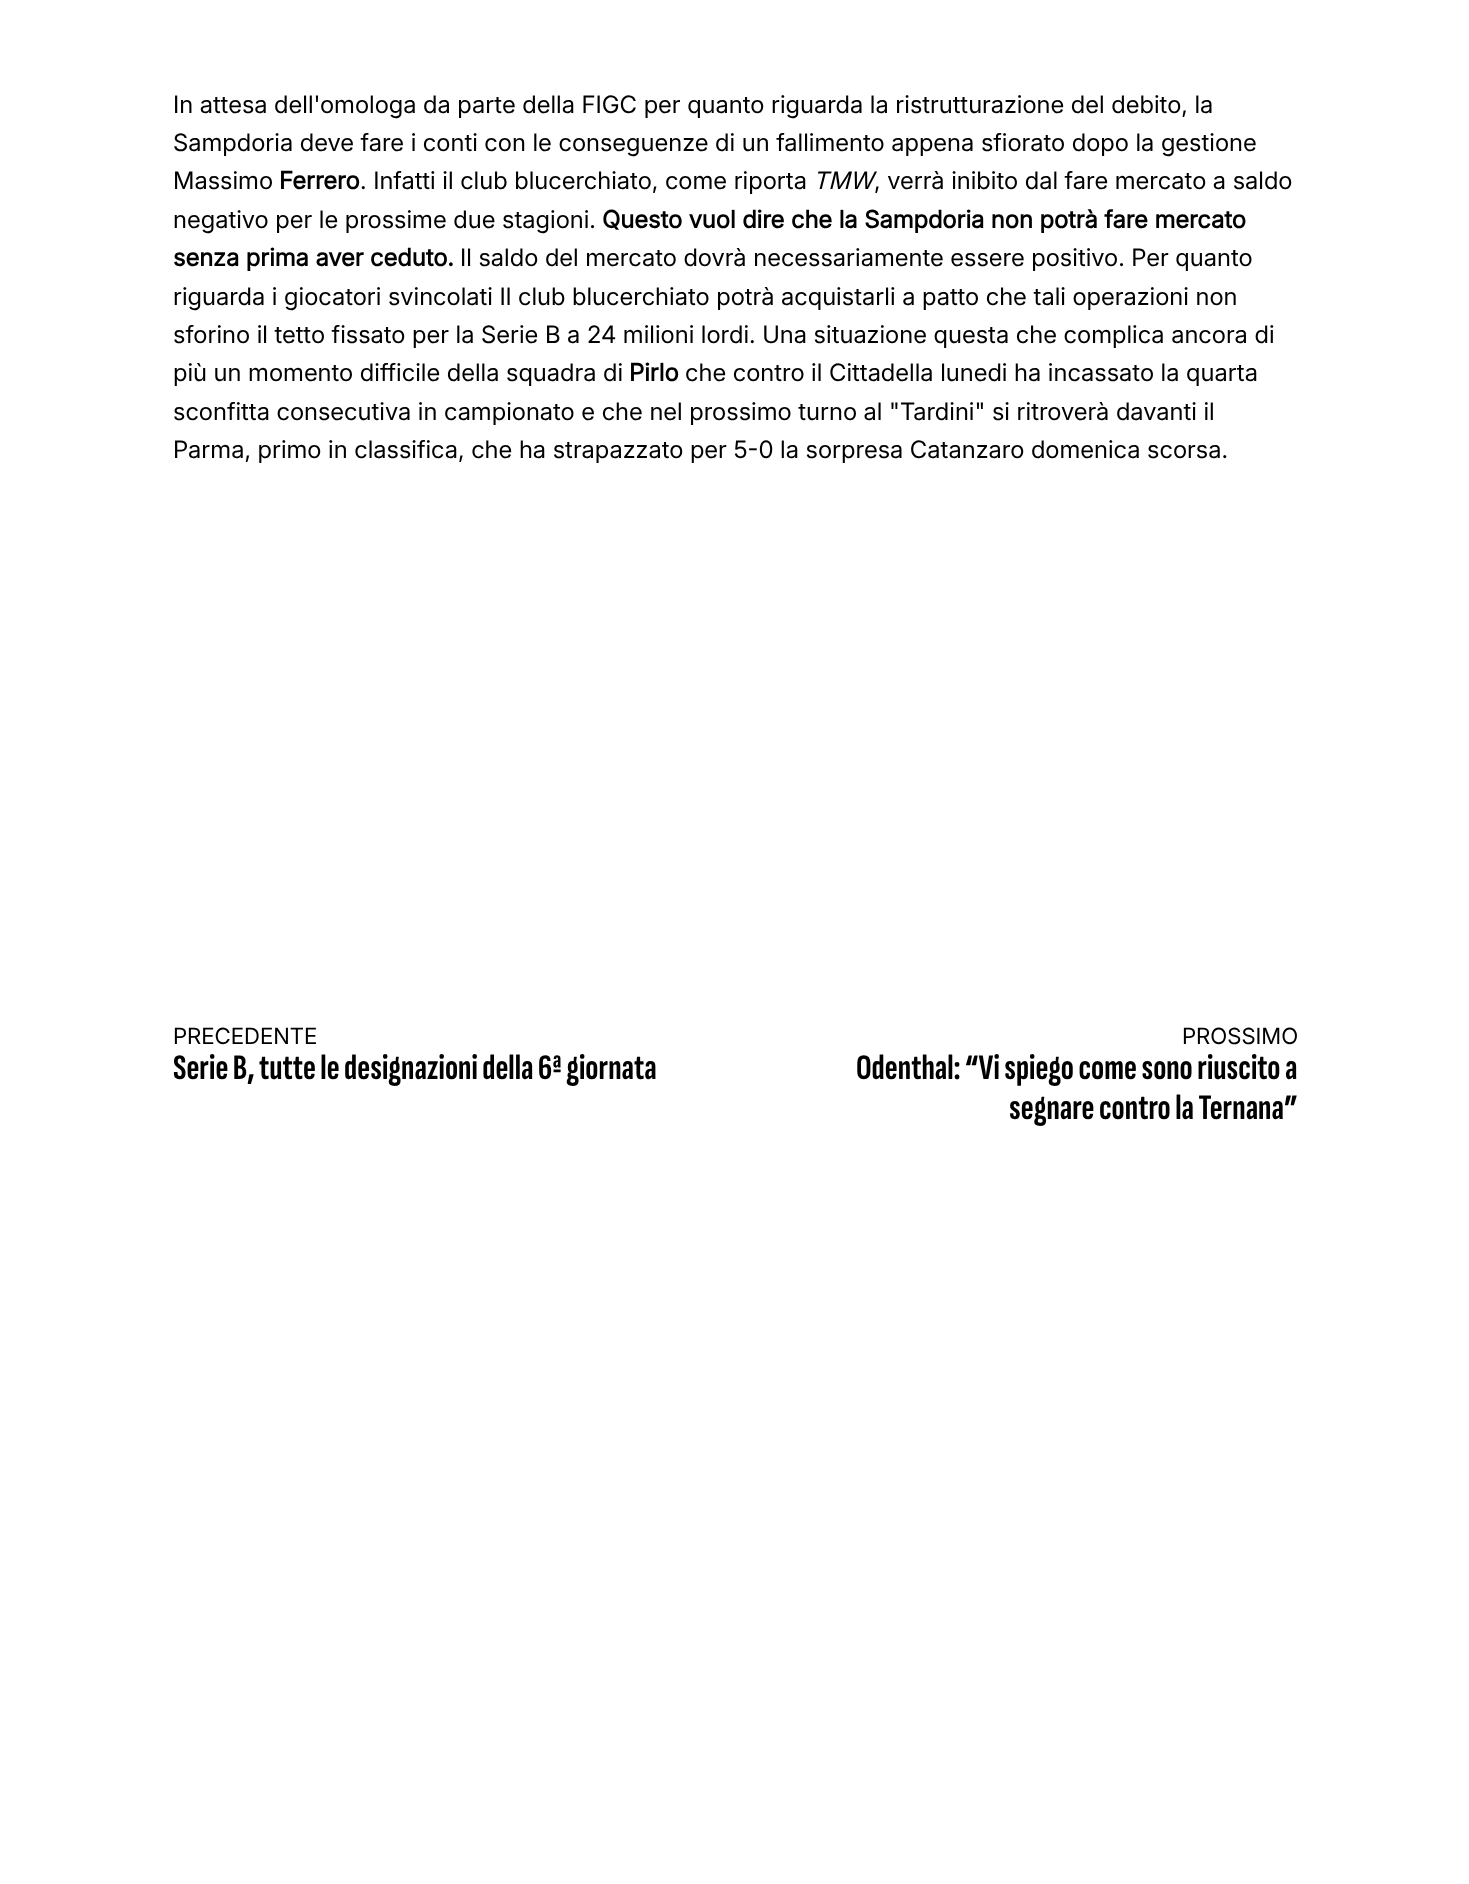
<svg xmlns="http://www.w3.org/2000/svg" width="1469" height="1884">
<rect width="100%" height="100%" fill="#fff"/>
<text x="173" y="113" style="font-family:Inter;font-size:24px;fill:#000">In attesa dell'omologa da parte della FIGC per quanto riguarda la ristrutturazione del debito, la</text>
<text x="173" y="151" style="font-family:Inter;font-size:24px;fill:#000">Sampdoria deve fare i conti con le conseguenze di un fallimento appena sfiorato dopo la gestione</text>
<text x="173" y="189" style="font-family:Inter;font-size:24px;fill:#000">Massimo</text>
<text x="279" y="189" style="font-family:Inter;font-size:24px;font-weight:bold;fill:#000">Ferrero</text>
<text x="360" y="189" style="font-family:Inter;font-size:24px;fill:#000">. Infatti il club blucerchiato, come riporta</text>
<text x="813" y="189" style="font-family:Inter;font-size:24px;font-style:italic;fill:#000">TMW</text>
<text x="874" y="189" style="font-family:Inter;font-size:24px;fill:#000">, verrà inibito dal fare mercato a saldo</text>
<text x="173" y="228" style="font-family:Inter;font-size:24px;fill:#000">negativo per le prossime due stagioni.</text>
<text x="602" y="228" style="font-family:Inter;font-size:24px;font-weight:bold;fill:#000">Questo vuol dire che la Sampdoria non potrà fare mercato</text>
<text x="173" y="266" style="font-family:Inter;font-size:24px;font-weight:bold;fill:#000">senza prima aver ceduto.</text>
<text x="460" y="266" style="font-family:Inter;font-size:24px;fill:#000">Il saldo del mercato dovrà necessariamente essere positivo. Per quanto</text>
<text x="173" y="305" style="font-family:Inter;font-size:24px;fill:#000">riguarda i giocatori svincolati Il club blucerchiato potrà acquistarli a patto che tali operazioni non</text>
<text x="173" y="343" style="font-family:Inter;font-size:24px;fill:#000">sforino il tetto fissato per la Serie B a 24 milioni lordi. Una situazione questa che complica ancora di</text>
<text x="173" y="381" style="font-family:Inter;font-size:24px;fill:#000">più un momento difficile della squadra di</text>
<text x="629" y="381" style="font-family:Inter;font-size:24px;font-weight:bold;fill:#000">Pirlo</text>
<text x="685" y="381" style="font-family:Inter;font-size:24px;fill:#000">che contro il Cittadella lunedi ha incassato la quarta</text>
<text x="173" y="420" style="font-family:Inter;font-size:24px;fill:#000">sconfitta consecutiva in campionato e che nel prossimo turno al "Tardini" si ritroverà davanti il</text>
<text x="173" y="458" style="font-family:Inter;font-size:24px;fill:#000">Parma, primo in classifica, che ha strapazzato per 5-0 la sorpresa Catanzaro domenica scorsa.</text>
<text x="173" y="1044" style="font-family:Inter;font-size:22.25px;fill:#000">PRECEDENTE</text>
<text x="173" y="1079" style="font-family:Sofia Sans Extra Condensed;font-size:36px;font-weight:bold;fill:#000">Serie B, tutte le designazioni della 6ª giornata</text>
<text x="1182" y="1044" style="font-family:Inter;font-size:22.25px;fill:#000">PROSSIMO</text>
<text x="856" y="1079" style="font-family:Sofia Sans Extra Condensed;font-size:36px;font-weight:bold;fill:#000">Odenthal: “Vi spiego come sono riuscito a</text>
<text x="1009" y="1119" style="font-family:Sofia Sans Extra Condensed;font-size:36px;font-weight:bold;fill:#000">segnare contro la Ternana”</text>
</svg>
